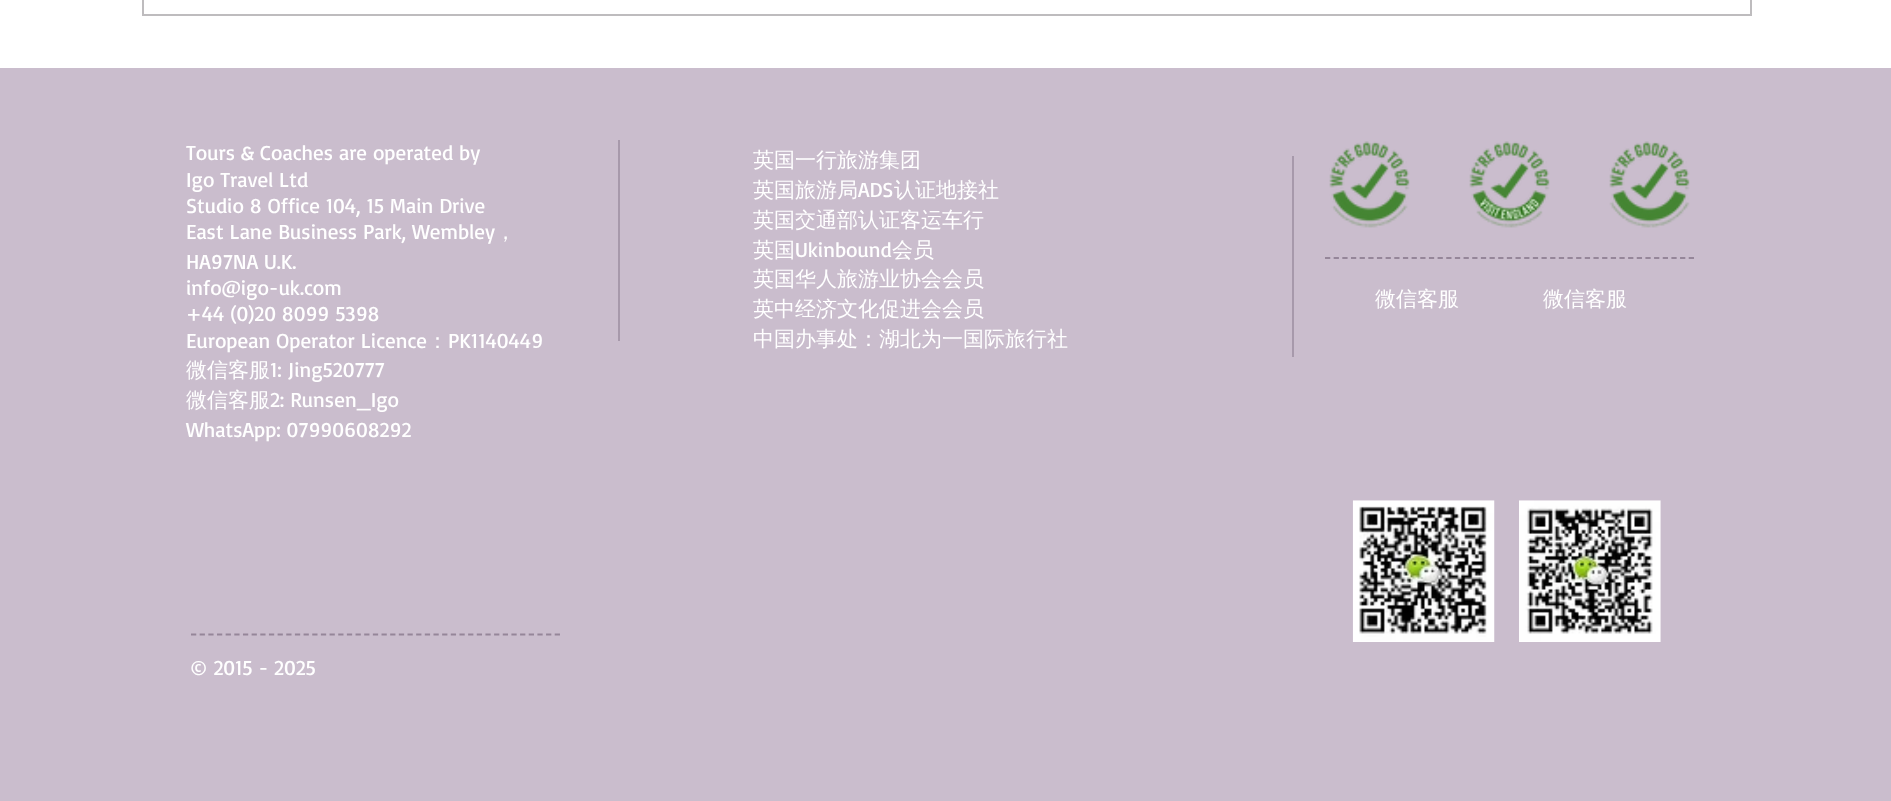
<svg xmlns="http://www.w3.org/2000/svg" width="1891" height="801">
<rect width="100%" height="100%" fill="#fff"/>
<rect x="143" y="-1" width="1608" height="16" fill="none" stroke="#bebcbe" stroke-width="2"/>
<rect y="68" width="1891" height="733" fill="#cabdcd"/>
<text x="186" y="160" style="font-family:Basic;font-size:21px;fill:#fff">Tours &amp; Coaches are operated by</text>
<text x="186" y="187" style="font-family:Basic;font-size:21px;fill:#fff">Igo Travel Ltd</text>
<text x="186" y="213" style="font-family:Basic;font-size:21px;fill:#fff">Studio 8 Office 104, 15 Main Drive</text>
<text x="186" y="239" style="font-family:Basic;font-size:21px;fill:#fff">East Lane Business Park, Wembley</text>
<text x="495" y="239" style="font-family:WenQuanYi Zen Hei;font-size:21px;font-weight:500;fill:#fff">，</text>
<text x="186" y="269" style="font-family:Basic;font-size:21px;fill:#fff">HA97NA U.K.</text>
<text x="186" y="295" style="font-family:Basic;font-size:21px;fill:#fff">info@igo-uk.com</text>
<text x="186" y="321" style="font-family:Basic;font-size:21px;fill:#fff">+44 (0)20 8099 5398</text>
<text x="186" y="348" style="font-family:Basic;font-size:21px;fill:#fff">European Operator Licence</text>
<text x="427" y="348" style="font-family:WenQuanYi Zen Hei;font-size:21px;font-weight:500;fill:#fff">：</text>
<text x="448" y="348" style="font-family:Basic;font-size:21px;fill:#fff">PK1140449</text>
<text x="186" y="377" style="font-family:WenQuanYi Zen Hei;font-size:21px;font-weight:500;fill:#fff">微信客服</text>
<text x="270" y="377" style="font-family:Basic;font-size:21px;fill:#fff">1: Jing520777</text>
<text x="186" y="407" style="font-family:WenQuanYi Zen Hei;font-size:21px;font-weight:500;fill:#fff">微信客服</text>
<text x="270" y="407" style="font-family:Basic;font-size:21px;fill:#fff">2: Runsen_Igo</text>
<text x="186" y="437" style="font-family:Basic;font-size:21px;fill:#fff">WhatsApp: 07990608292</text>
<rect x="618" y="140" width="2" height="201" fill="#a799ab"/>
<text x="753" y="167" style="font-family:WenQuanYi Zen Hei;font-size:21px;font-weight:500;fill:#fff">英国一行旅游集团</text>
<text x="753" y="197" style="font-family:WenQuanYi Zen Hei;font-size:21px;font-weight:500;fill:#fff">英国旅游局</text>
<text x="858" y="197" style="font-family:Basic;font-size:21px;fill:#fff">ADS</text>
<text x="894" y="197" style="font-family:WenQuanYi Zen Hei;font-size:21px;font-weight:500;fill:#fff">认证地接社</text>
<text x="753" y="227" style="font-family:WenQuanYi Zen Hei;font-size:21px;font-weight:500;fill:#fff">英国交通部认证客运车行</text>
<text x="753" y="257" style="font-family:WenQuanYi Zen Hei;font-size:21px;font-weight:500;fill:#fff">英国</text>
<text x="795" y="257" style="font-family:Basic;font-size:21px;fill:#fff">Ukinbound</text>
<text x="892" y="257" style="font-family:WenQuanYi Zen Hei;font-size:21px;font-weight:500;fill:#fff">会员</text>
<text x="753" y="286" style="font-family:WenQuanYi Zen Hei;font-size:21px;font-weight:500;fill:#fff">英国华人旅游业协会会员</text>
<text x="753" y="316" style="font-family:WenQuanYi Zen Hei;font-size:21px;font-weight:500;fill:#fff">英中经济文化促进会会员</text>
<text x="753" y="346" style="font-family:WenQuanYi Zen Hei;font-size:21px;font-weight:500;fill:#fff">中国办事处：湖北为一国际旅行社</text>
<rect x="1292" y="156" width="2" height="201" fill="#a799ab"/>
<image x="1329" y="141" width="81" height="87" href="media/1.png"/>
<image x="1469" y="141" width="81" height="87" href="media/2.png"/>
<image x="1609" y="141" width="81" height="87" href="media/3.png"/>
<path d="M1325 258h369" fill="none" stroke="#958699" stroke-width="1.8" stroke-dasharray="5.25 3.41"/>
<text x="1375" y="306" style="font-family:WenQuanYi Zen Hei;font-size:21px;font-weight:500;fill:#fff">微信客服</text>
<text x="1543" y="306" style="font-family:WenQuanYi Zen Hei;font-size:21px;font-weight:500;fill:#fff">微信客服</text>
<path d="M191 634.5h369" fill="none" stroke="#958699" stroke-width="1.8" stroke-dasharray="5.25 3.41"/>
<image x="1352" y="500" width="143" height="142" href="media/4.png"/>
<image x="1519" y="500" width="142" height="142" href="media/5.png"/>
<text x="190" y="675" style="font-family:Basic;font-size:21px;fill:#fff">© 2015 - 2025</text>
</svg>
